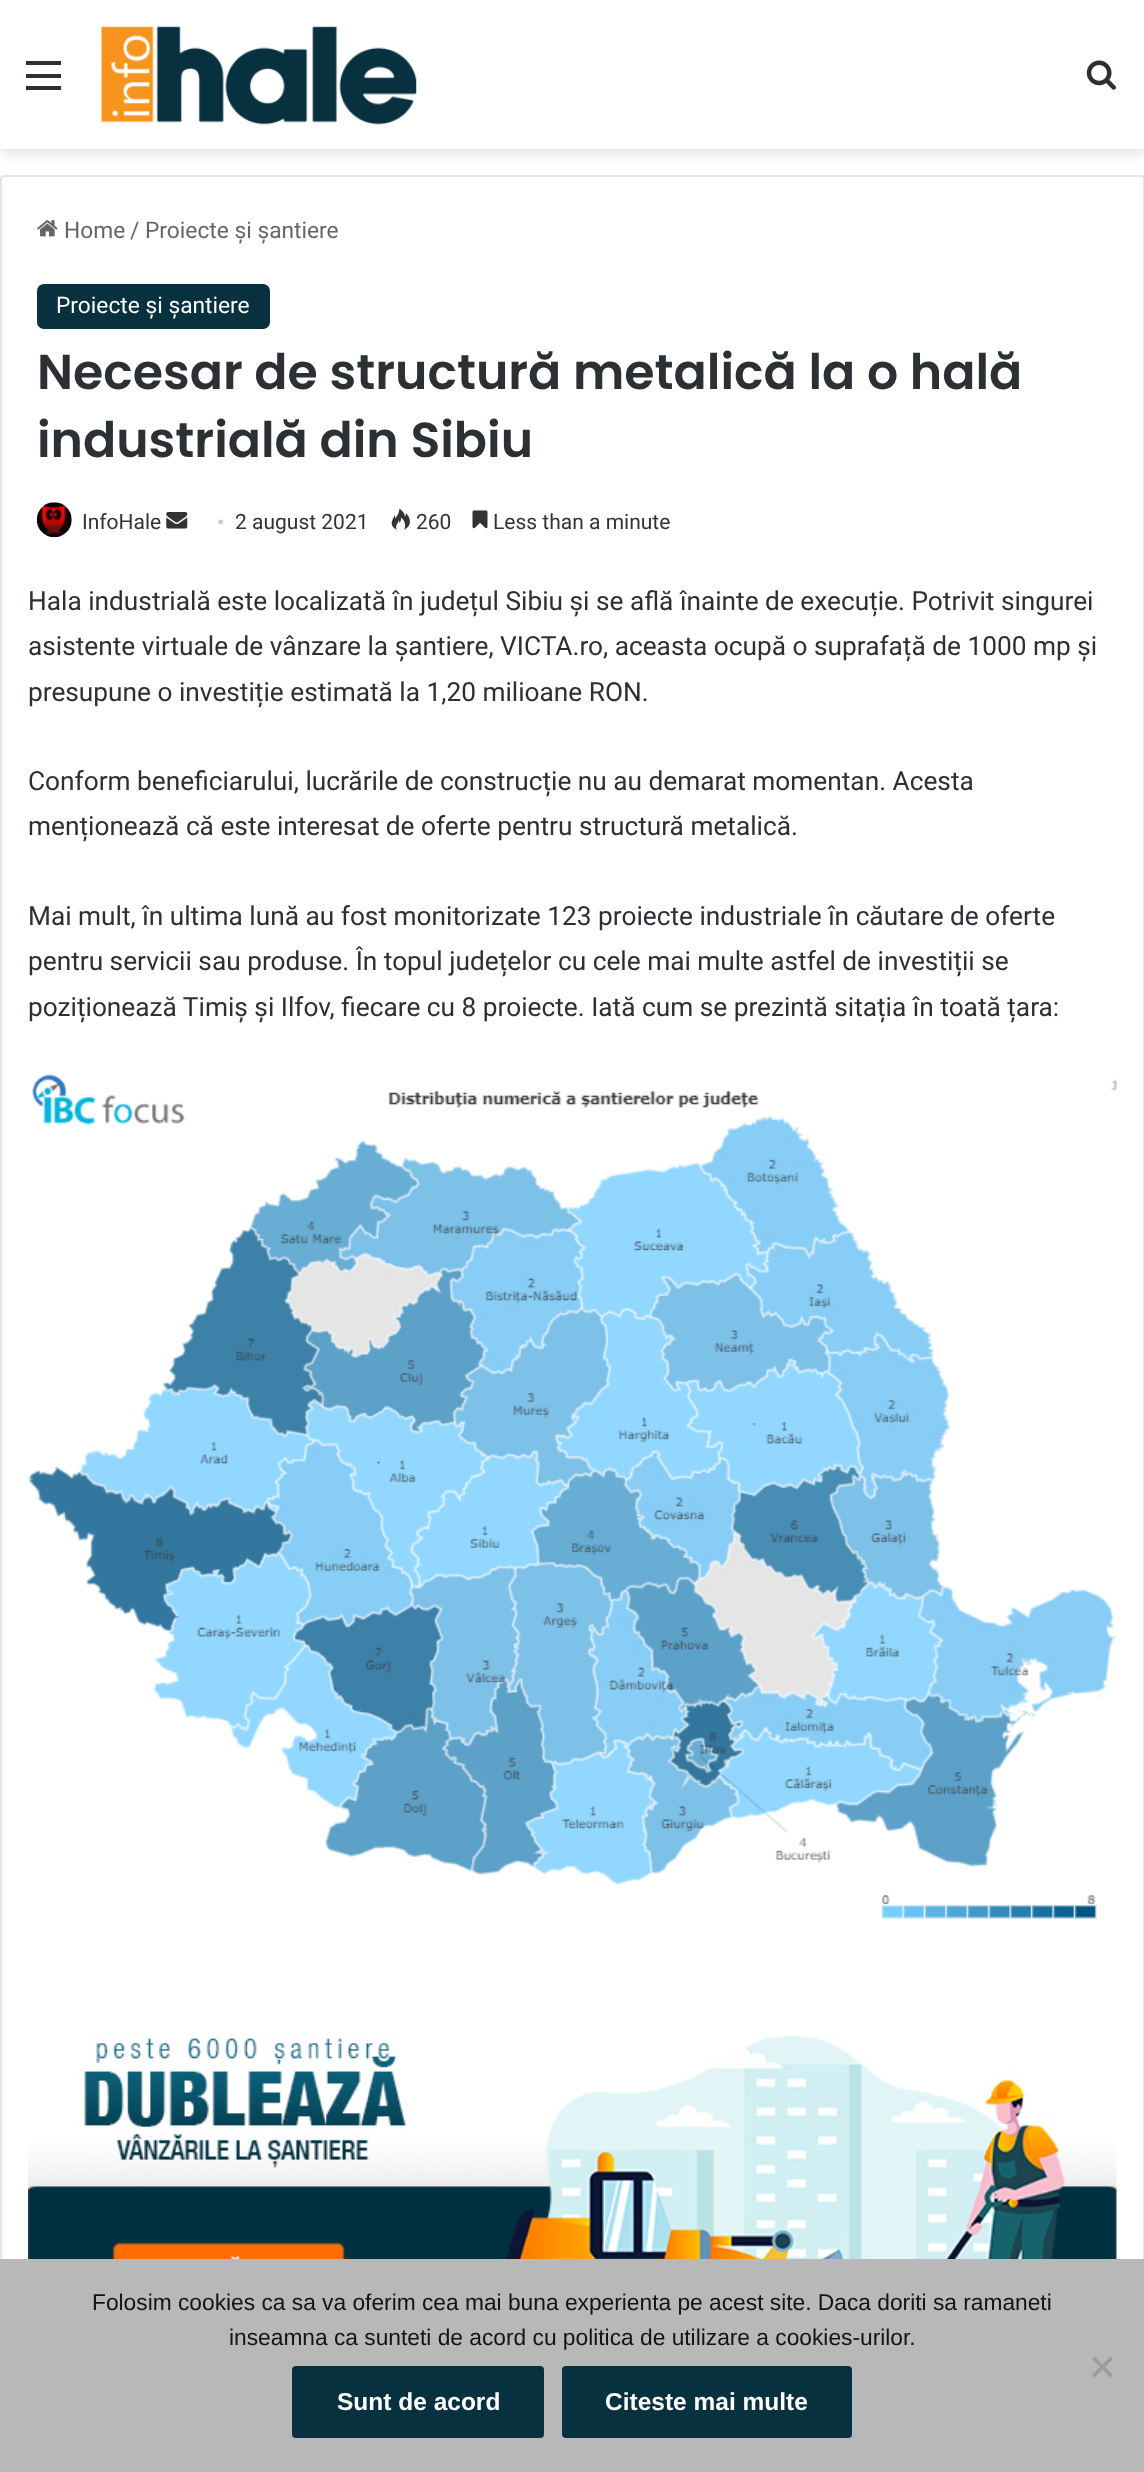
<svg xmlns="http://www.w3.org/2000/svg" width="1144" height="2472">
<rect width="100%" height="100%" fill="#fff"/>
<rect y="5" width="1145" height="149" fill="#0000001a" filter="blur(6px)"/>
<rect width="1144" height="149" fill="#fff"/>
<rect x="26" y="74" width="35" height="4" fill="#2c2f34"/>
<rect x="26" y="61" width="35" height="4" fill="#2c2f34"/>
<rect x="26" y="86" width="35" height="4" fill="#2c2f34"/>
<image x="101" y="26" width="316" height="99" href="media/1.png"/>
<image x="1086" y="60" width="30" height="30" href="media/2.png"/>
<rect x="1" y="176" width="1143" height="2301" rx="3" fill="none" stroke="#e6e6e6" stroke-width="2"/>
<image x="37" y="220" width="21" height="17" href="media/3.png"/>
<text x="64" y="238" style="font-family:Roboto;font-size:22.75px;fill:#666">Home</text>
<text x="130" y="238" style="font-family:Roboto;font-size:22.75px;fill:#666">/</text>
<text x="145" y="238" style="font-family:Roboto;font-size:22.75px;fill:#666">Proiecte și șantiere</text>
<rect x="37" y="284" width="233" height="45" rx="7" fill="#083140"/>
<text x="56" y="313" style="font-family:Roboto;font-size:22.75px;fill:#fff">Proiecte și șantiere</text>
<text x="37" y="389" style="font-family:Poppins;font-size:49px;font-weight:600;fill:#2c2f34">Necesar de structură metalică la o hală</text>
<text x="37" y="457" style="font-family:Poppins;font-size:49px;font-weight:600;fill:#2c2f34">industrială din Sibiu</text>
<image x="36" y="502" width="36" height="36" href="media/4.png"/>
<text x="82" y="529" style="font-family:Roboto;font-size:21px;fill:#333">InfoHale</text>
<image x="166" y="512" width="22" height="17" href="media/5.png"/>
<text x="217" y="529" style="font-family:Liberation Serif;font-size:21px;fill:#ccc">•</text>
<text x="235" y="529" style="font-family:Roboto;font-size:21px;fill:#333">2 august 2021</text>
<image x="391" y="508" width="19" height="22" href="media/6.png"/>
<text x="416" y="529" style="font-family:Roboto;font-size:21px;fill:#333">260</text>
<image x="472" y="510" width="16" height="19" href="media/7.png"/>
<text x="493" y="529" style="font-family:Roboto;font-size:21px;fill:#333">Less than a minute</text>
<text x="28" y="610" style="font-family:Roboto;font-size:26.25px;fill:#2c2f34">Hala industrială este localizată în județul Sibiu și se află înainte de execuție. Potrivit singurei</text>
<text x="28" y="655" style="font-family:Roboto;font-size:26.25px;fill:#2c2f34">asistente virtuale de vânzare la șantiere, VICTA.ro, aceasta ocupă o suprafață de 1000 mp și</text>
<text x="28" y="701" style="font-family:Roboto;font-size:26.25px;fill:#2c2f34">presupune o investiție estimată la 1,20 milioane RON.</text>
<text x="28" y="790" style="font-family:Roboto;font-size:26.25px;fill:#2c2f34">Conform beneficiarului, lucrările de construcție nu au demarat momentan. Acesta</text>
<text x="28" y="835" style="font-family:Roboto;font-size:26.25px;fill:#2c2f34">menționează că este interesat de oferte pentru structură metalică.</text>
<text x="28" y="925" style="font-family:Roboto;font-size:26.25px;fill:#2c2f34">Mai mult, în ultima lună au fost monitorizate 123 proiecte industriale în căutare de oferte</text>
<text x="28" y="970" style="font-family:Roboto;font-size:26.25px;fill:#2c2f34">pentru servicii sau produse. În topul județelor cu cele mai multe astfel de investiții se</text>
<text x="28" y="1016" style="font-family:Roboto;font-size:26.25px;fill:#2c2f34">poziționează Timiș și Ilfov, fiecare cu 8 proiecte. Iată cum se prezintă sitația în toată țara:</text>
<image x="28" y="1074" width="1089" height="845" href="media/8.png"/>
<image x="28" y="2035" width="1089" height="224" href="media/9.png"/>
<rect y="2259" width="1144" height="213" fill="#b8b8b8"/>
<text x="92" y="2310" style="font-family:Liberation Sans;font-size:22.75px;fill:#141414">Folosim cookies ca sa va oferim cea mai buna experienta pe acest site. Daca doriti sa ramaneti</text>
<text x="229" y="2345" style="font-family:Liberation Sans;font-size:22.75px;fill:#141414">inseamna ca sunteti de acord cu politica de utilizare a cookies-urilor.</text>
<path d="M1110.5 2356.5l2.5 2.5l-18.5 18.5l-2.5-2.5z" fill="#9c9c9c"/>
<path d="M1092 2359l2.5-2.5l18.5 18.5l-2.5 2.5z" fill="#9c9c9c"/>
<rect x="292" y="2366" width="252" height="72" rx="4" fill="#083140"/>
<text x="337" y="2410" style="font-family:Liberation Sans;font-size:24.5px;font-weight:bold;fill:#fff">Sunt de acord</text>
<rect x="562" y="2366" width="290" height="72" rx="4" fill="#083140"/>
<text x="605" y="2410" style="font-family:Liberation Sans;font-size:24.5px;font-weight:bold;fill:#fff">Citeste mai multe</text>
</svg>
